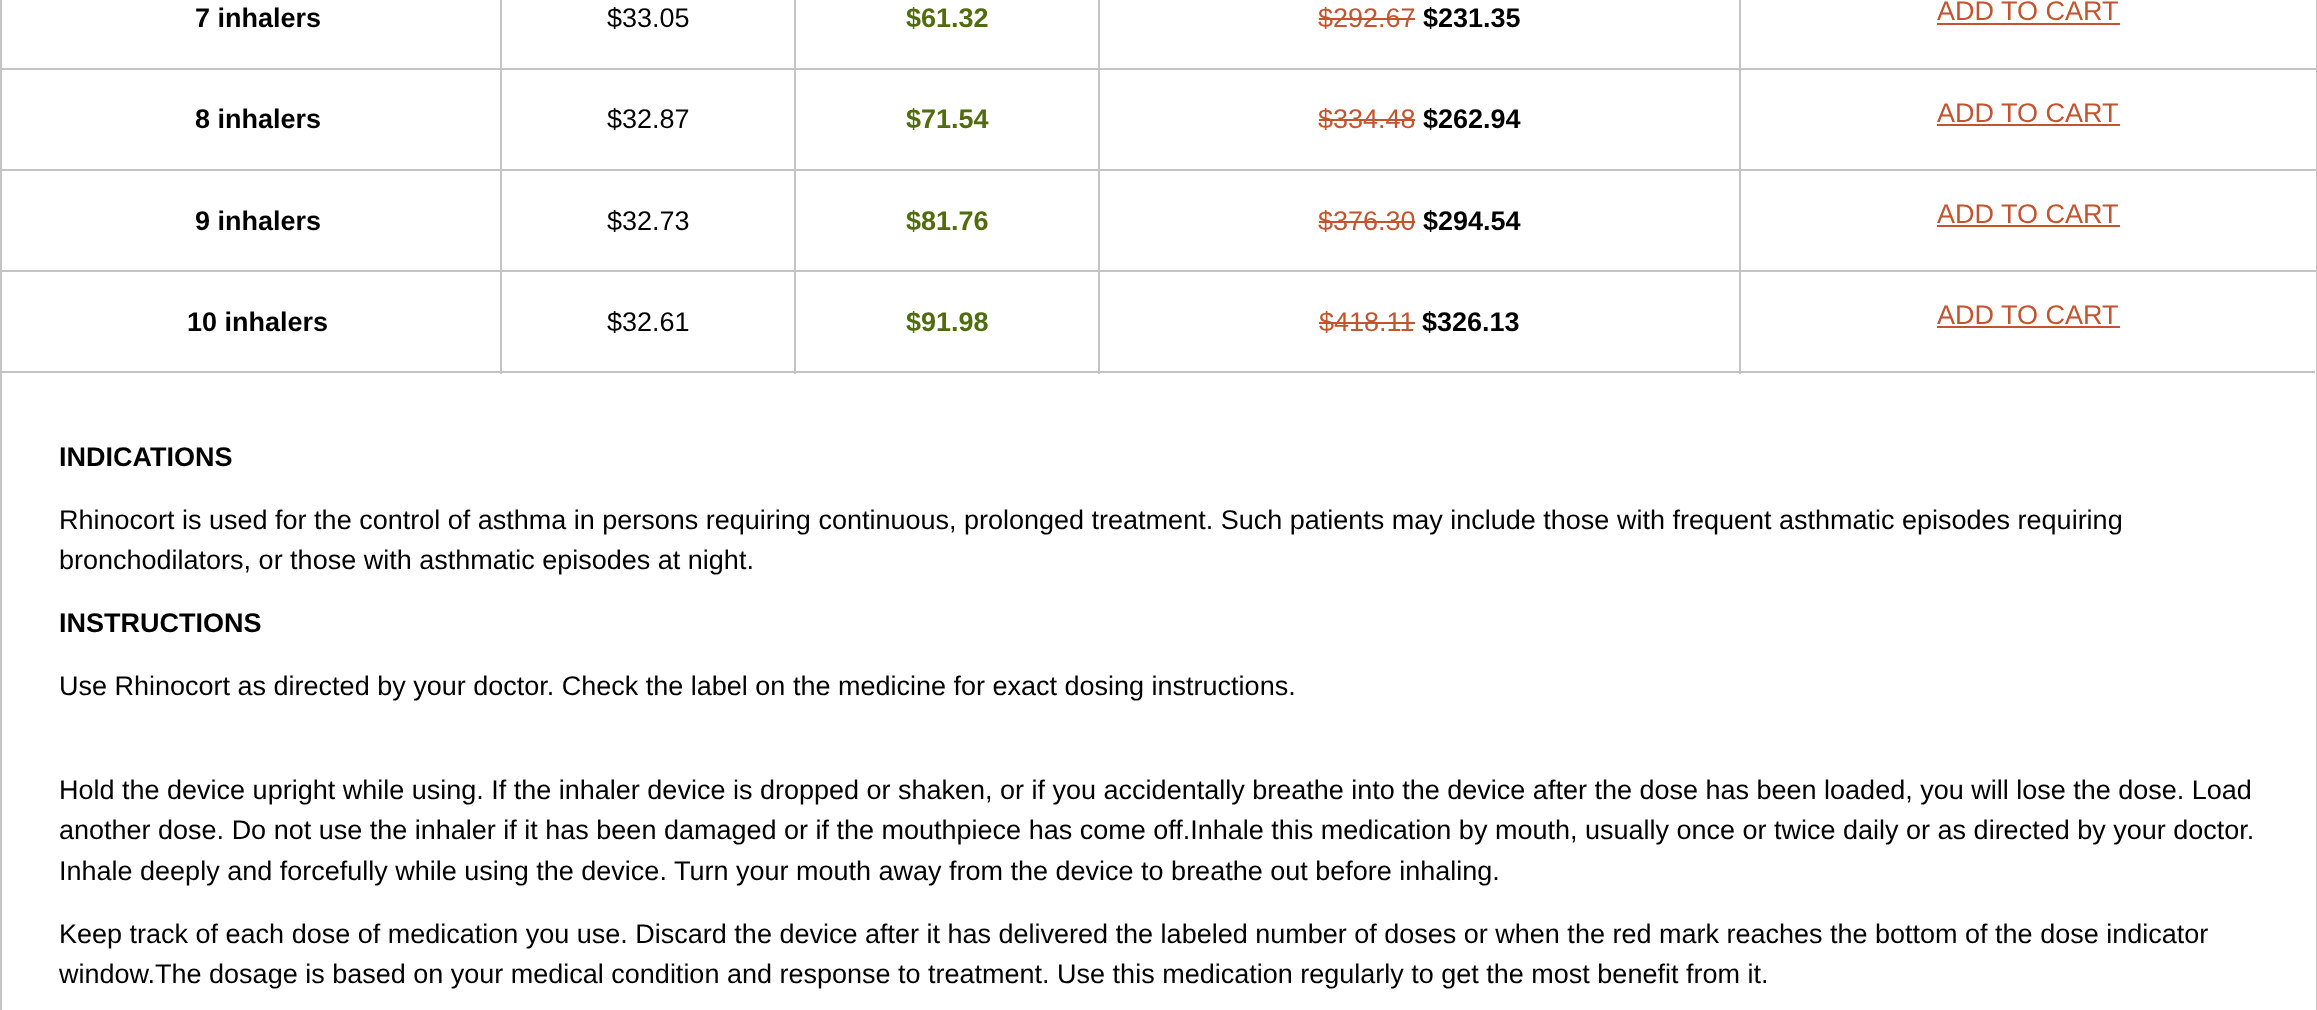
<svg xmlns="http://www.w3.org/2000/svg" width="2317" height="1010">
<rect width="100%" height="100%" fill="#fff"/>
<rect x="1" y="-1" width="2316" height="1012" fill="none" stroke="#c5c4c4" stroke-width="2"/>
<rect x="2" y="371" width="2313" height="2" fill="#c5c4c4"/>
<text x="195" y="27" style="font-family:Liberation Sans;font-size:27px;font-weight:bold;fill:#000">7 inhalers</text>
<rect x="1739" y="68" width="578" height="2" fill="#c5c4c4"/>
<rect x="1739" y="169" width="578" height="2" fill="#c5c4c4"/>
<rect x="1739" y="270" width="578" height="2" fill="#c5c4c4"/>
<rect x="1739" y="270" width="2" height="104" fill="#c5c4c4"/>
<rect x="1098" y="270" width="644" height="2" fill="#c5c4c4"/>
<rect x="1739" y="169" width="2" height="103" fill="#c5c4c4"/>
<rect x="1098" y="169" width="644" height="2" fill="#c5c4c4"/>
<rect x="1739" y="68" width="2" height="103" fill="#c5c4c4"/>
<rect x="1098" y="68" width="644" height="2" fill="#c5c4c4"/>
<rect x="1098" y="270" width="2" height="104" fill="#c5c4c4"/>
<rect x="794" y="270" width="306" height="2" fill="#c5c4c4"/>
<rect x="1098" y="169" width="2" height="103" fill="#c5c4c4"/>
<rect x="794" y="169" width="306" height="2" fill="#c5c4c4"/>
<rect x="1098" y="68" width="2" height="103" fill="#c5c4c4"/>
<rect x="794" y="68" width="306" height="2" fill="#c5c4c4"/>
<rect x="794" y="270" width="2" height="104" fill="#c5c4c4"/>
<rect x="500" y="270" width="297" height="2" fill="#c5c4c4"/>
<rect x="794" y="169" width="2" height="103" fill="#c5c4c4"/>
<rect x="500" y="169" width="297" height="2" fill="#c5c4c4"/>
<rect x="794" y="68" width="2" height="103" fill="#c5c4c4"/>
<rect x="500" y="68" width="297" height="2" fill="#c5c4c4"/>
<rect x="500" y="270" width="2" height="104" fill="#c5c4c4"/>
<rect x="2" y="270" width="500" height="2" fill="#c5c4c4"/>
<rect x="500" y="169" width="2" height="103" fill="#c5c4c4"/>
<rect x="2" y="169" width="500" height="2" fill="#c5c4c4"/>
<rect x="500" y="68" width="2" height="103" fill="#c5c4c4"/>
<rect x="2" y="68" width="500" height="2" fill="#c5c4c4"/>
<rect x="500" width="2" height="70" fill="#c5c4c4"/>
<text x="607" y="27" style="font-family:Liberation Sans;font-size:27px;fill:#000">$33.05</text>
<rect x="794" width="2" height="70" fill="#c5c4c4"/>
<text x="906" y="27" style="font-family:Liberation Sans;font-size:27px;font-weight:bold;fill:#506c0c">$61.32</text>
<rect x="1098" width="2" height="70" fill="#c5c4c4"/>
<text x="1318" y="27" style="font-family:Liberation Sans;font-size:27px;fill:#c2542f">$292.67</text>
<rect x="1319" y="18" width="96" height="2" fill="#c2542f"/>
<text x="1423" y="27" style="font-family:Liberation Sans;font-size:27px;font-weight:bold;fill:#000">$231.35</text>
<rect x="1739" width="2" height="70" fill="#c5c4c4"/>
<text x="1937" y="20" style="font-family:Liberation Sans;font-size:27px;fill:#c2542f">ADD TO CART</text>
<rect x="1937" y="23" width="183" height="2" fill="#c2542f"/>
<text x="195" y="128" style="font-family:Liberation Sans;font-size:27px;font-weight:bold;fill:#000">8 inhalers</text>
<text x="607" y="128" style="font-family:Liberation Sans;font-size:27px;fill:#000">$32.87</text>
<text x="906" y="128" style="font-family:Liberation Sans;font-size:27px;font-weight:bold;fill:#506c0c">$71.54</text>
<text x="1318" y="128" style="font-family:Liberation Sans;font-size:27px;fill:#c2542f">$334.48</text>
<rect x="1319" y="119" width="96" height="2" fill="#c2542f"/>
<text x="1423" y="128" style="font-family:Liberation Sans;font-size:27px;font-weight:bold;fill:#000">$262.94</text>
<text x="1937" y="122" style="font-family:Liberation Sans;font-size:27px;fill:#c2542f">ADD TO CART</text>
<rect x="1937" y="124" width="183" height="2" fill="#c2542f"/>
<text x="195" y="230" style="font-family:Liberation Sans;font-size:27px;font-weight:bold;fill:#000">9 inhalers</text>
<text x="607" y="230" style="font-family:Liberation Sans;font-size:27px;fill:#000">$32.73</text>
<text x="906" y="230" style="font-family:Liberation Sans;font-size:27px;font-weight:bold;fill:#506c0c">$81.76</text>
<text x="1318" y="230" style="font-family:Liberation Sans;font-size:27px;fill:#c2542f">$376.30</text>
<rect x="1319" y="221" width="96" height="2" fill="#c2542f"/>
<text x="1423" y="230" style="font-family:Liberation Sans;font-size:27px;font-weight:bold;fill:#000">$294.54</text>
<text x="1937" y="223" style="font-family:Liberation Sans;font-size:27px;fill:#c2542f">ADD TO CART</text>
<rect x="1937" y="225" width="183" height="2" fill="#c2542f"/>
<text x="187" y="331" style="font-family:Liberation Sans;font-size:27px;font-weight:bold;fill:#000">10 inhalers</text>
<text x="607" y="331" style="font-family:Liberation Sans;font-size:27px;fill:#000">$32.61</text>
<text x="906" y="331" style="font-family:Liberation Sans;font-size:27px;font-weight:bold;fill:#506c0c">$91.98</text>
<text x="1319" y="331" style="font-family:Liberation Sans;font-size:27px;fill:#c2542f">$418.11</text>
<rect x="1319" y="322" width="96" height="2" fill="#c2542f"/>
<text x="1422" y="331" style="font-family:Liberation Sans;font-size:27px;font-weight:bold;fill:#000">$326.13</text>
<text x="1937" y="324" style="font-family:Liberation Sans;font-size:27px;fill:#c2542f">ADD TO CART</text>
<rect x="1937" y="326" width="183" height="2" fill="#c2542f"/>
<text x="59" y="466" style="font-family:Liberation Sans;font-size:27px;font-weight:bold;fill:#000">INDICATIONS</text>
<text x="59" y="529" style="font-family:Liberation Sans;font-size:27px;fill:#000">Rhinocort is used for the control of asthma in persons requiring continuous, prolonged treatment. Such patients may include those with frequent asthmatic episodes requiring</text>
<text x="59" y="569" style="font-family:Liberation Sans;font-size:27px;fill:#000">bronchodilators, or those with asthmatic episodes at night.</text>
<text x="59" y="632" style="font-family:Liberation Sans;font-size:27px;font-weight:bold;fill:#000">INSTRUCTIONS</text>
<text x="59" y="695" style="font-family:Liberation Sans;font-size:27px;fill:#000">Use Rhinocort as directed by your doctor. Check the label on the medicine for exact dosing instructions.</text>
<text x="59" y="799" style="font-family:Liberation Sans;font-size:27px;fill:#000">Hold the device upright while using. If the inhaler device is dropped or shaken, or if you accidentally breathe into the device after the dose has been loaded, you will lose the dose. Load</text>
<text x="59" y="839" style="font-family:Liberation Sans;font-size:27px;fill:#000">another dose. Do not use the inhaler if it has been damaged or if the mouthpiece has come off.Inhale this medication by mouth, usually once or twice daily or as directed by your doctor.</text>
<text x="59" y="880" style="font-family:Liberation Sans;font-size:27px;fill:#000">Inhale deeply and forcefully while using the device. Turn your mouth away from the device to breathe out before inhaling.</text>
<text x="59" y="943" style="font-family:Liberation Sans;font-size:27px;fill:#000">Keep track of each dose of medication you use. Discard the device after it has delivered the labeled number of doses or when the red mark reaches the bottom of the dose indicator</text>
<text x="59" y="983" style="font-family:Liberation Sans;font-size:27px;fill:#000">window.The dosage is based on your medical condition and response to treatment. Use this medication regularly to get the most benefit from it.</text>
</svg>
